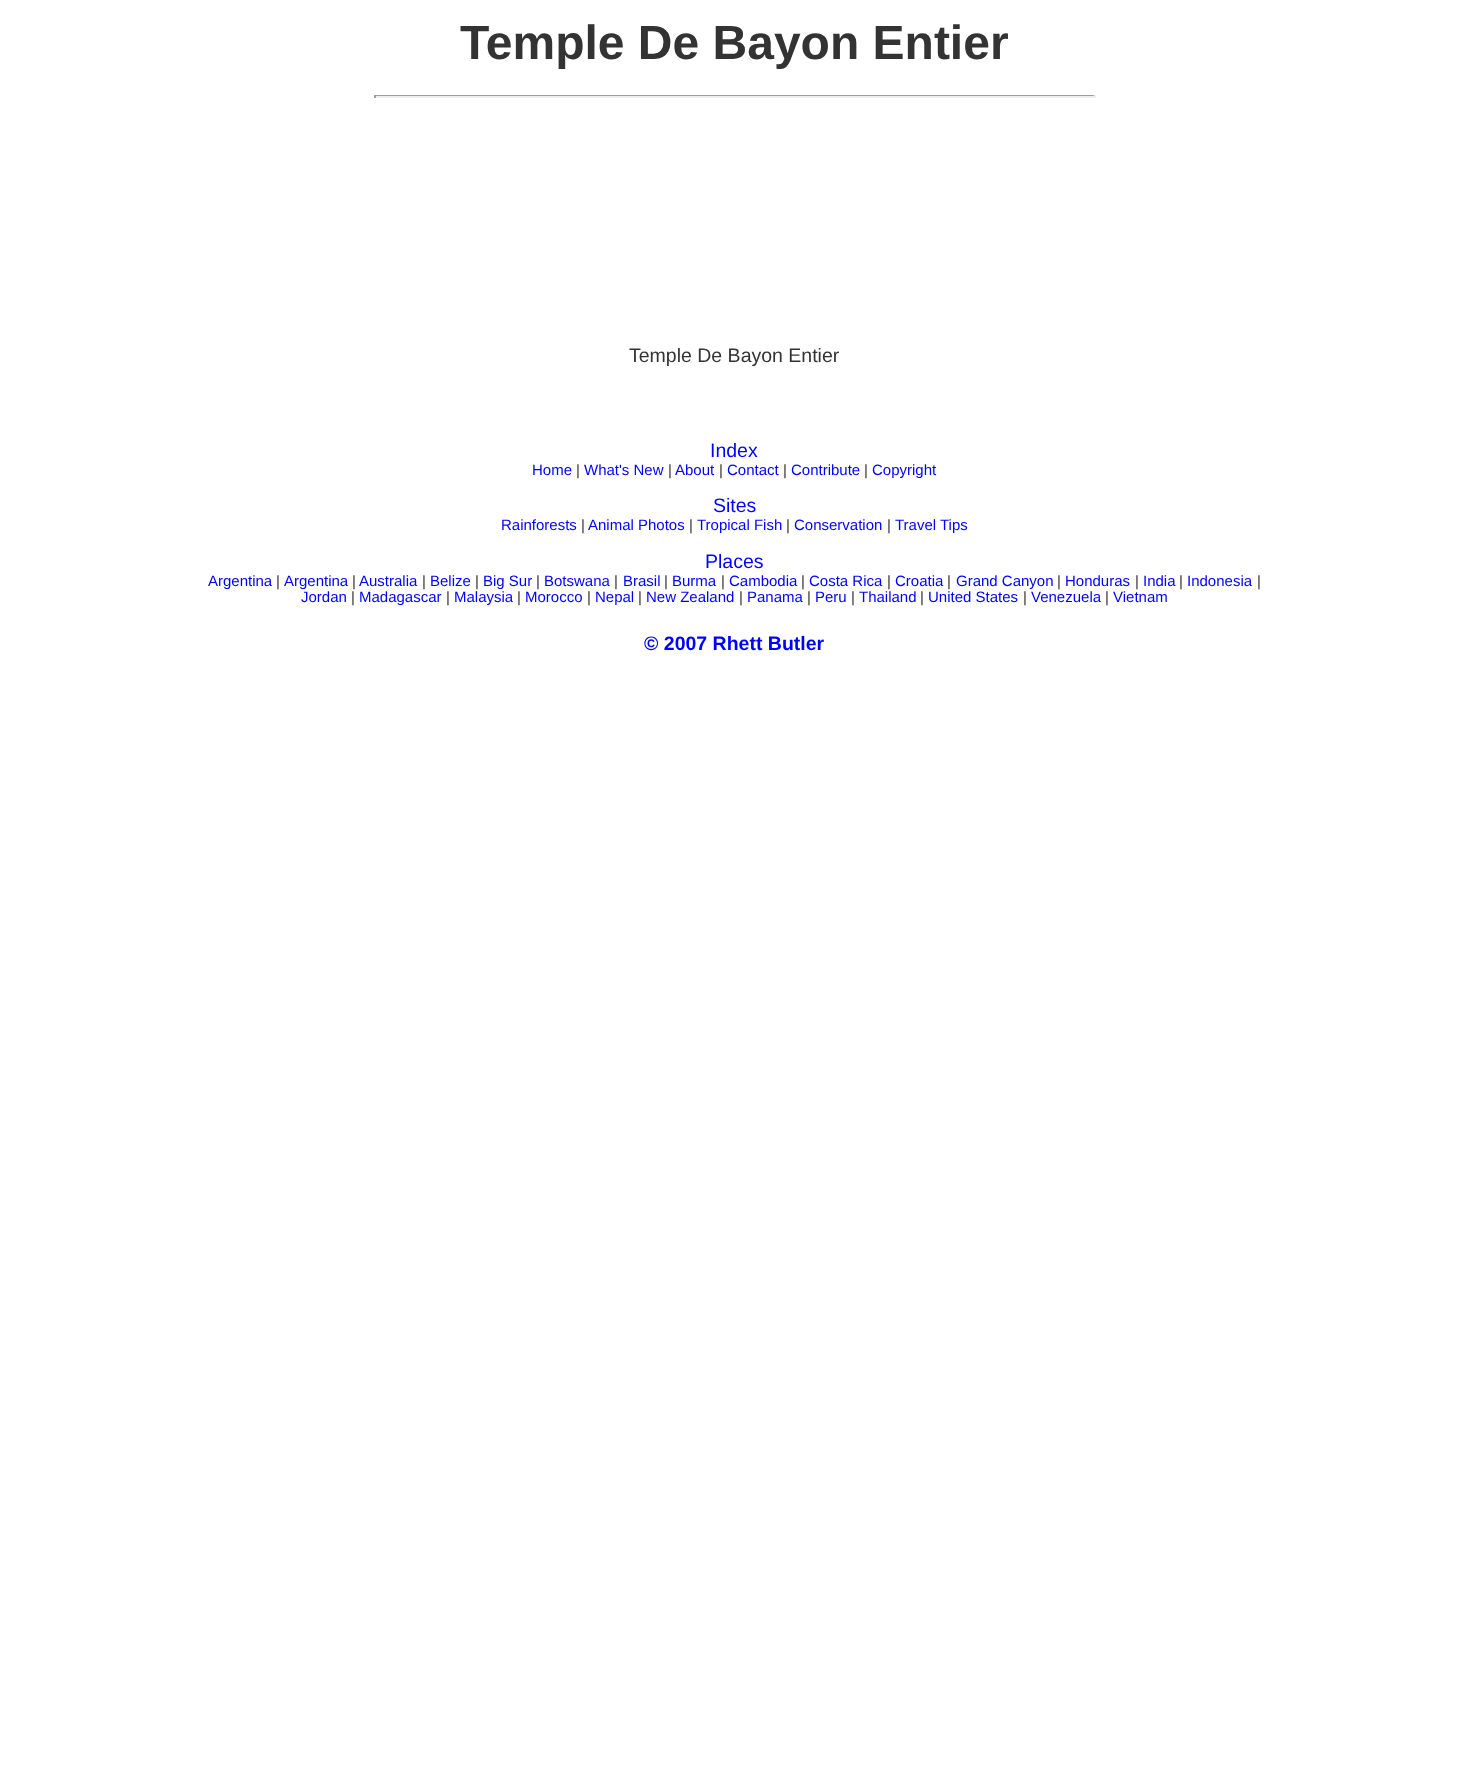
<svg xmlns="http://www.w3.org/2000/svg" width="1468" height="1786">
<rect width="100%" height="100%" fill="#fff"/>
<text x="460" y="59" style="font-family:Liberation Sans;font-size:48px;font-weight:bold;fill:#333">Temple De Bayon Entier</text>
<rect x="374" y="95" width="721" height="1" fill="#9f9f9f"/>
<rect x="1094" y="95" width="2" height="3" fill="#eee"/>
<rect x="374" y="96" width="721" height="2" fill="#eee"/>
<rect x="374" y="95" width="2" height="3" fill="#9f9f9f"/>
<text x="629" y="362" style="font-family:Liberation Sans;font-size:19.5px;fill:#333">Temple De Bayon Entier</text>
<text x="710" y="457" style="font-family:Liberation Sans;font-size:19.5px;fill:#00f">Index</text>
<text x="532" y="475" style="font-family:Liberation Sans;font-size:15px;fill:#00f">Home</text>
<text x="576" y="475" style="font-family:Liberation Sans;font-size:15px;fill:#333">|</text>
<text x="584" y="475" style="font-family:Liberation Sans;font-size:15px;fill:#00f">What's New</text>
<text x="668" y="475" style="font-family:Liberation Sans;font-size:15px;fill:#333">|</text>
<text x="675" y="475" style="font-family:Liberation Sans;font-size:15px;fill:#00f">About</text>
<text x="719" y="475" style="font-family:Liberation Sans;font-size:15px;fill:#333">|</text>
<text x="727" y="475" style="font-family:Liberation Sans;font-size:15px;fill:#00f">Contact</text>
<text x="783" y="475" style="font-family:Liberation Sans;font-size:15px;fill:#333">|</text>
<text x="791" y="475" style="font-family:Liberation Sans;font-size:15px;fill:#00f">Contribute</text>
<text x="864" y="475" style="font-family:Liberation Sans;font-size:15px;fill:#333">|</text>
<text x="872" y="475" style="font-family:Liberation Sans;font-size:15px;fill:#00f">Copyright</text>
<text x="713" y="512" style="font-family:Liberation Sans;font-size:19.5px;fill:#00f">Sites</text>
<text x="501" y="530" style="font-family:Liberation Sans;font-size:15px;fill:#00f">Rainforests</text>
<text x="581" y="530" style="font-family:Liberation Sans;font-size:15px;fill:#333">|</text>
<text x="588" y="530" style="font-family:Liberation Sans;font-size:15px;fill:#00f">Animal Photos</text>
<text x="689" y="530" style="font-family:Liberation Sans;font-size:15px;fill:#333">|</text>
<text x="697" y="530" style="font-family:Liberation Sans;font-size:15px;fill:#00f">Tropical Fish</text>
<text x="786" y="530" style="font-family:Liberation Sans;font-size:15px;fill:#333">|</text>
<text x="794" y="530" style="font-family:Liberation Sans;font-size:15px;fill:#00f">Conservation</text>
<text x="887" y="530" style="font-family:Liberation Sans;font-size:15px;fill:#333">|</text>
<text x="895" y="530" style="font-family:Liberation Sans;font-size:15px;fill:#00f">Travel Tips</text>
<text x="705" y="568" style="font-family:Liberation Sans;font-size:19.5px;fill:#00f">Places</text>
<text x="208" y="586" style="font-family:Liberation Sans;font-size:15px;fill:#00f">Argentina</text>
<text x="276" y="586" style="font-family:Liberation Sans;font-size:15px;fill:#333">|</text>
<text x="284" y="586" style="font-family:Liberation Sans;font-size:15px;fill:#00f">Argentina</text>
<text x="352" y="586" style="font-family:Liberation Sans;font-size:15px;fill:#333">|</text>
<text x="359" y="586" style="font-family:Liberation Sans;font-size:15px;fill:#00f">Australia</text>
<text x="422" y="586" style="font-family:Liberation Sans;font-size:15px;fill:#333">|</text>
<text x="430" y="586" style="font-family:Liberation Sans;font-size:15px;fill:#00f">Belize</text>
<text x="475" y="586" style="font-family:Liberation Sans;font-size:15px;fill:#333">|</text>
<text x="483" y="586" style="font-family:Liberation Sans;font-size:15px;fill:#00f">Big Sur</text>
<text x="536" y="586" style="font-family:Liberation Sans;font-size:15px;fill:#333">|</text>
<text x="544" y="586" style="font-family:Liberation Sans;font-size:15px;fill:#00f">Botswana</text>
<text x="614" y="586" style="font-family:Liberation Sans;font-size:15px;fill:#333">|</text>
<text x="623" y="586" style="font-family:Liberation Sans;font-size:15px;fill:#00f">Brasil</text>
<text x="664" y="586" style="font-family:Liberation Sans;font-size:15px;fill:#333">|</text>
<text x="672" y="586" style="font-family:Liberation Sans;font-size:15px;fill:#00f">Burma</text>
<text x="721" y="586" style="font-family:Liberation Sans;font-size:15px;fill:#333">|</text>
<text x="729" y="586" style="font-family:Liberation Sans;font-size:15px;fill:#00f">Cambodia</text>
<text x="801" y="586" style="font-family:Liberation Sans;font-size:15px;fill:#333">|</text>
<text x="809" y="586" style="font-family:Liberation Sans;font-size:15px;fill:#00f">Costa Rica</text>
<text x="887" y="586" style="font-family:Liberation Sans;font-size:15px;fill:#333">|</text>
<text x="895" y="586" style="font-family:Liberation Sans;font-size:15px;fill:#00f">Croatia</text>
<text x="947" y="586" style="font-family:Liberation Sans;font-size:15px;fill:#333">|</text>
<text x="956" y="586" style="font-family:Liberation Sans;font-size:15px;fill:#00f">Grand Canyon</text>
<text x="1057" y="586" style="font-family:Liberation Sans;font-size:15px;fill:#333">|</text>
<text x="1065" y="586" style="font-family:Liberation Sans;font-size:15px;fill:#00f">Honduras</text>
<text x="1135" y="586" style="font-family:Liberation Sans;font-size:15px;fill:#333">|</text>
<text x="1143" y="586" style="font-family:Liberation Sans;font-size:15px;fill:#00f">India</text>
<text x="1179" y="586" style="font-family:Liberation Sans;font-size:15px;fill:#333">|</text>
<text x="1187" y="586" style="font-family:Liberation Sans;font-size:15px;fill:#00f">Indonesia</text>
<text x="1257" y="586" style="font-family:Liberation Sans;font-size:15px;fill:#333">|</text>
<text x="301" y="602" style="font-family:Liberation Sans;font-size:15px;fill:#00f">Jordan</text>
<text x="351" y="602" style="font-family:Liberation Sans;font-size:15px;fill:#333">|</text>
<text x="359" y="602" style="font-family:Liberation Sans;font-size:15px;fill:#00f">Madagascar</text>
<text x="446" y="602" style="font-family:Liberation Sans;font-size:15px;fill:#333">|</text>
<text x="454" y="602" style="font-family:Liberation Sans;font-size:15px;fill:#00f">Malaysia</text>
<text x="517" y="602" style="font-family:Liberation Sans;font-size:15px;fill:#333">|</text>
<text x="525" y="602" style="font-family:Liberation Sans;font-size:15px;fill:#00f">Morocco</text>
<text x="587" y="602" style="font-family:Liberation Sans;font-size:15px;fill:#333">|</text>
<text x="595" y="602" style="font-family:Liberation Sans;font-size:15px;fill:#00f">Nepal</text>
<text x="638" y="602" style="font-family:Liberation Sans;font-size:15px;fill:#333">|</text>
<text x="646" y="602" style="font-family:Liberation Sans;font-size:15px;fill:#00f">New Zealand</text>
<text x="739" y="602" style="font-family:Liberation Sans;font-size:15px;fill:#333">|</text>
<text x="747" y="602" style="font-family:Liberation Sans;font-size:15px;fill:#00f">Panama</text>
<text x="807" y="602" style="font-family:Liberation Sans;font-size:15px;fill:#333">|</text>
<text x="815" y="602" style="font-family:Liberation Sans;font-size:15px;fill:#00f">Peru</text>
<text x="851" y="602" style="font-family:Liberation Sans;font-size:15px;fill:#333">|</text>
<text x="859" y="602" style="font-family:Liberation Sans;font-size:15px;fill:#00f">Thailand</text>
<text x="920" y="602" style="font-family:Liberation Sans;font-size:15px;fill:#333">|</text>
<text x="928" y="602" style="font-family:Liberation Sans;font-size:15px;fill:#00f">United States</text>
<text x="1023" y="602" style="font-family:Liberation Sans;font-size:15px;fill:#333">|</text>
<text x="1031" y="602" style="font-family:Liberation Sans;font-size:15px;fill:#00f">Venezuela</text>
<text x="1105" y="602" style="font-family:Liberation Sans;font-size:15px;fill:#333">|</text>
<text x="1113" y="602" style="font-family:Liberation Sans;font-size:15px;fill:#00f">Vietnam</text>
<text x="644" y="650" style="font-family:Liberation Sans;font-size:19.5px;font-weight:bold;fill:#00f">© 2007 Rhett Butler</text>
</svg>
